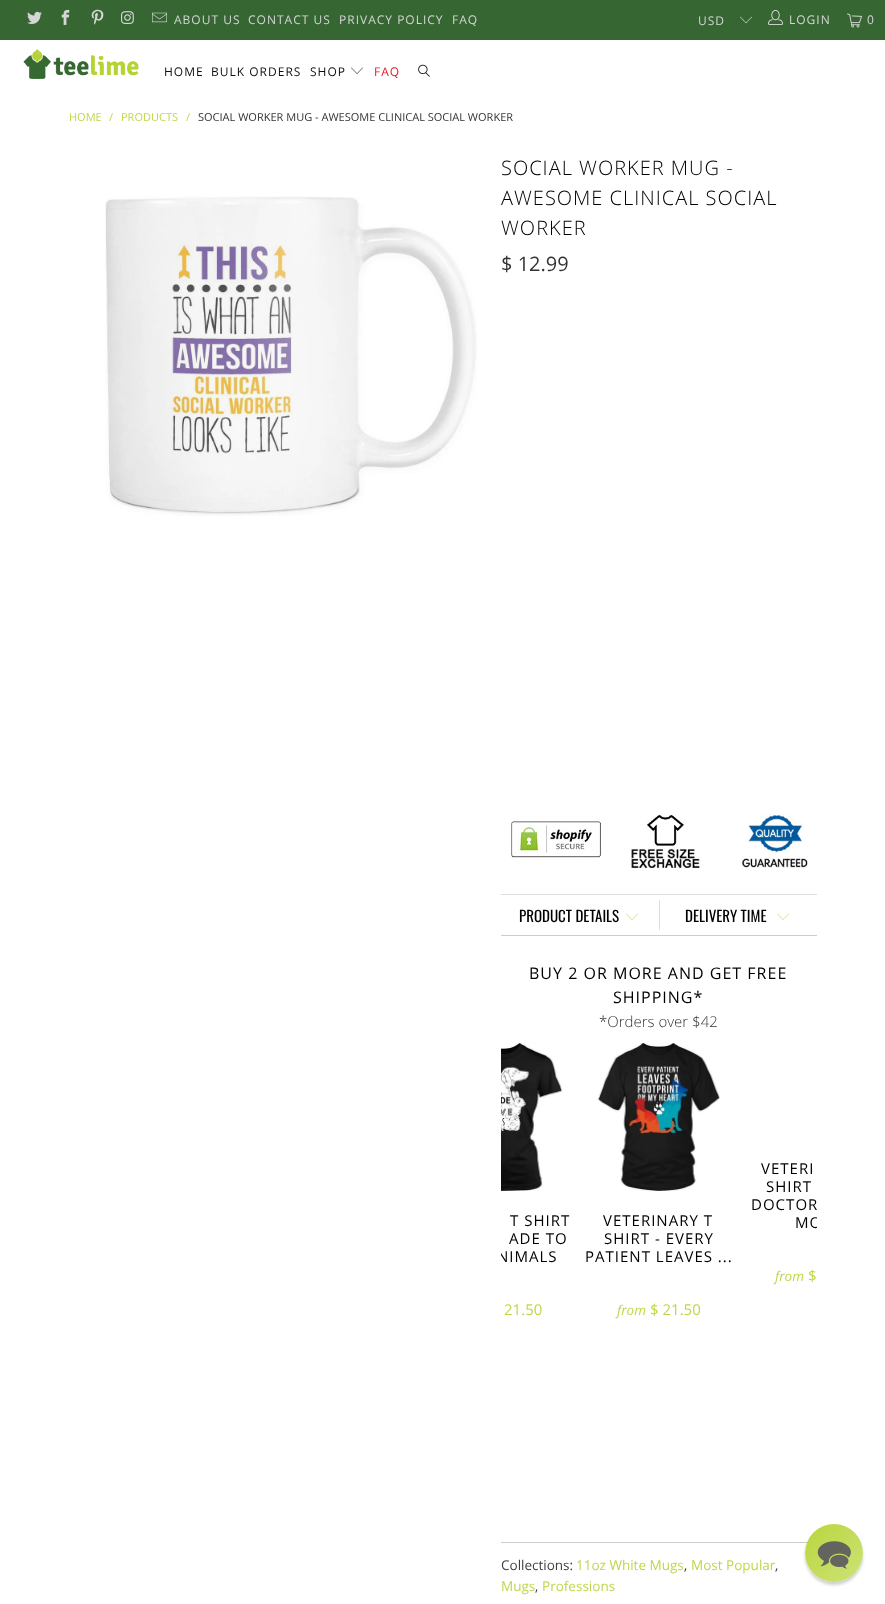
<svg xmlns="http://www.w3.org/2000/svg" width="885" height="1604">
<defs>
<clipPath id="clip1"><rect x="501" y="1043" width="316" height="479"/></clipPath>
<clipPath id="clip2"><path d="M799 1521h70v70h-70zm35 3c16 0 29 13 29 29c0 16-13 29-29 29c-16 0-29-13-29-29c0-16 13-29 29-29z" clip-rule="evenodd"/></clipPath>
<linearGradient id="g1" gradientUnits="userSpaceOnUse" x1="805" y1="1524" x2="863" y2="1582"><stop offset="0" stop-color="#b5d432" stop-opacity="0.95"/><stop offset="1" stop-color="#cbe170" stop-opacity="0.95"/></linearGradient>
</defs>
<rect width="100%" height="100%" fill="#fff"/>
<rect width="885" height="40" fill="#366732"/>
<image x="27" y="11" width="15" height="13" href="media/1.png"/>
<image x="61" y="9" width="9" height="16" href="media/2.png"/>
<image x="91" y="9" width="13" height="16" href="media/3.png"/>
<image x="121" y="11" width="13" height="13" href="media/4.png"/>
<image x="152" y="12" width="15" height="11" href="media/5.png"/>
<text x="174" y="24" style="font-family:Open Sans;font-size:12px;letter-spacing:1px;fill:#d6d6d6">ABOUT US</text>
<text x="248" y="24" style="font-family:Open Sans;font-size:12px;letter-spacing:1px;fill:#d6d6d6">CONTACT US</text>
<text x="339" y="24" style="font-family:Open Sans;font-size:12px;letter-spacing:1px;fill:#d6d6d6">PRIVACY POLICY</text>
<text x="452" y="24" style="font-family:Open Sans;font-size:12px;letter-spacing:1px;fill:#d6d6d6">FAQ</text>
<image x="740" y="16" width="12" height="8" href="media/6.png"/>
<text x="698" y="25" style="font-family:Open Sans;font-size:12px;letter-spacing:1px;fill:#d6d6d6">USD</text>
<image x="768" y="9" width="15" height="16" href="media/7.png"/>
<text x="789" y="24" style="font-family:Open Sans;font-size:12px;letter-spacing:1px;fill:#d6d6d6">LOGIN</text>
<image x="847" y="13" width="15" height="15" href="media/8.png"/>
<text x="867" y="24" style="font-family:Open Sans;font-size:12px;letter-spacing:1px;fill:#d6d6d6">0</text>
<image x="23" y="49" width="116" height="30" href="media/9.png"/>
<text x="164" y="76" style="font-family:Open Sans;font-size:12px;letter-spacing:1px;fill:#0e0e0e">HOME</text>
<text x="211" y="76" style="font-family:Open Sans;font-size:12px;letter-spacing:1px;fill:#0e0e0e">BULK ORDERS</text>
<text x="310" y="76" style="font-family:Open Sans;font-size:12px;letter-spacing:1px;fill:#0e0e0e">SHOP</text>
<image x="351" y="67" width="12" height="7" href="media/10.png"/>
<text x="374" y="76" style="font-family:Open Sans;font-size:12px;letter-spacing:1px;fill:#e5151d">FAQ</text>
<image x="418" y="64" width="12" height="13" href="media/11.png"/>
<text x="69" y="121" style="font-family:Open Sans;font-size:11px;fill:#bcd849">HOME</text>
<text x="109" y="121" style="font-family:Open Sans;font-size:11px;fill:#bcd849">/</text>
<text x="121" y="121" style="font-family:Open Sans;font-size:11px;fill:#bcd849">PRODUCTS</text>
<text x="186" y="121" style="font-family:Open Sans;font-size:11px;fill:#bcd849">/</text>
<text x="198" y="121" style="font-family:Open Sans;font-size:11px;fill:#333">SOCIAL WORKER MUG - AWESOME CLINICAL SOCIAL WORKER</text>
<image x="105" y="196" width="372" height="320" href="media/12.png"/>
<text x="501" y="175" style="font-family:Open Sans;font-size:20px;font-weight:300;letter-spacing:1px;fill:#000">SOCIAL WORKER MUG -</text>
<text x="501" y="205" style="font-family:Open Sans;font-size:20px;font-weight:300;letter-spacing:1px;fill:#000">AWESOME CLINICAL SOCIAL</text>
<text x="501" y="235" style="font-family:Open Sans;font-size:20px;font-weight:300;letter-spacing:1px;fill:#000">WORKER</text>
<text x="501" y="271" style="font-family:Open Sans;font-size:20px;fill:#333">$ 12.99</text>
<image x="511" y="813" width="297" height="55" href="media/13.png"/>
<rect x="501" y="894" width="316" height="1" fill="#dedede"/>
<rect x="501" y="935" width="316" height="1" fill="#ccc"/>
<text x="519" y="922" style="font-family:Oswald;font-size:15px;fill:#000">PRODUCT DETAILS</text>
<image x="626" y="913" width="12" height="7" href="media/14.png"/>
<rect x="659" y="900" width="1" height="30" fill="#dedede"/>
<text x="685" y="922" style="font-family:Oswald;font-size:15px;fill:#000">DELIVERY TIME</text>
<image x="777" y="913" width="12" height="7" href="media/14.png"/>
<text x="529" y="979" style="font-family:Open Sans;font-size:16px;letter-spacing:1px;fill:#000">BUY 2 OR MORE AND GET FREE</text>
<text x="613" y="1003" style="font-family:Open Sans;font-size:16px;letter-spacing:1px;fill:#000">SHIPPING*</text>
<text x="599" y="1027" style="font-family:Open Sans;font-size:15px;font-weight:300;fill:#333">*Orders over $42</text>
<image x="501" y="1043" width="62" height="148" href="media/15.png"/>
<text x="510" y="1226" style="font-family:Open Sans;font-size:15px;letter-spacing:1px;fill:#000">T SHIRT</text>
<text x="509" y="1244" style="font-family:Open Sans;font-size:15px;letter-spacing:1px;fill:#000">ADE TO</text>
<g clip-path="url(#clip1)">
<text x="497" y="1262" style="font-family:Open Sans;font-size:15px;letter-spacing:1px;fill:#000">NIMALS</text>
</g>
<text x="504" y="1315" style="font-family:Open Sans;font-size:15px;fill:#bcd849">21.50</text>
<image x="597" y="1043" width="124" height="148" href="media/16.png"/>
<text x="603" y="1226" style="font-family:Open Sans;font-size:15px;letter-spacing:1px;fill:#000">VETERINARY T</text>
<text x="604" y="1244" style="font-family:Open Sans;font-size:15px;letter-spacing:1px;fill:#000">SHIRT - EVERY</text>
<text x="585" y="1262" style="font-family:Open Sans;font-size:15px;letter-spacing:1px;fill:#000">PATIENT LEAVES ...</text>
<text x="617" y="1315" style="font-family:Open Sans;font-size:13.5px;font-style:italic;fill:#bcd849">from</text>
<text x="650" y="1315" style="font-family:Open Sans;font-size:15px;fill:#bcd849">$ 21.50</text>
<text x="761" y="1174" style="font-family:Open Sans;font-size:15px;letter-spacing:1px;fill:#000">VETERI</text>
<text x="766" y="1192" style="font-family:Open Sans;font-size:15px;letter-spacing:1px;fill:#000">SHIRT</text>
<text x="751" y="1210" style="font-family:Open Sans;font-size:15px;letter-spacing:1px;fill:#000">DOCTOR</text>
<g clip-path="url(#clip1)">
<text x="795" y="1228" style="font-family:Open Sans;font-size:15px;letter-spacing:1px;fill:#000">MO</text>
</g>
<text x="775" y="1281" style="font-family:Open Sans;font-size:13.5px;font-style:italic;fill:#bcd849">from</text>
<text x="808" y="1281" style="font-family:Open Sans;font-size:15px;fill:#bcd849">$</text>
<rect x="501" y="1542" width="316" height="1" fill="#ccc"/>
<text x="501" y="1570" style="font-family:Open Sans;font-size:13.5px;fill:#404040">Collections:</text>
<text x="576" y="1570" style="font-family:Open Sans;font-size:13.5px;fill:#bcd849">11oz White Mugs</text>
<text x="684" y="1570" style="font-family:Open Sans;font-size:13.5px;fill:#333">,</text>
<text x="691" y="1570" style="font-family:Open Sans;font-size:13.5px;fill:#bcd849">Most Popular</text>
<text x="775" y="1570" style="font-family:Open Sans;font-size:13.5px;fill:#333">,</text>
<text x="501" y="1591" style="font-family:Open Sans;font-size:13.5px;fill:#bcd849">Mugs</text>
<text x="535" y="1591" style="font-family:Open Sans;font-size:13.5px;fill:#333">,</text>
<text x="542" y="1591" style="font-family:Open Sans;font-size:13.5px;fill:#bcd849">Professions</text>
<g clip-path="url(#clip2)">
<rect x="805" y="1527" width="58" height="58" rx="29" fill="#00000030" filter="blur(1.5px)"/>
</g>
<circle cx="834" cy="1553" r="29" fill="url(#g1)"/>
<image x="817" y="1541" width="34" height="28" href="media/17.png"/>
</svg>
